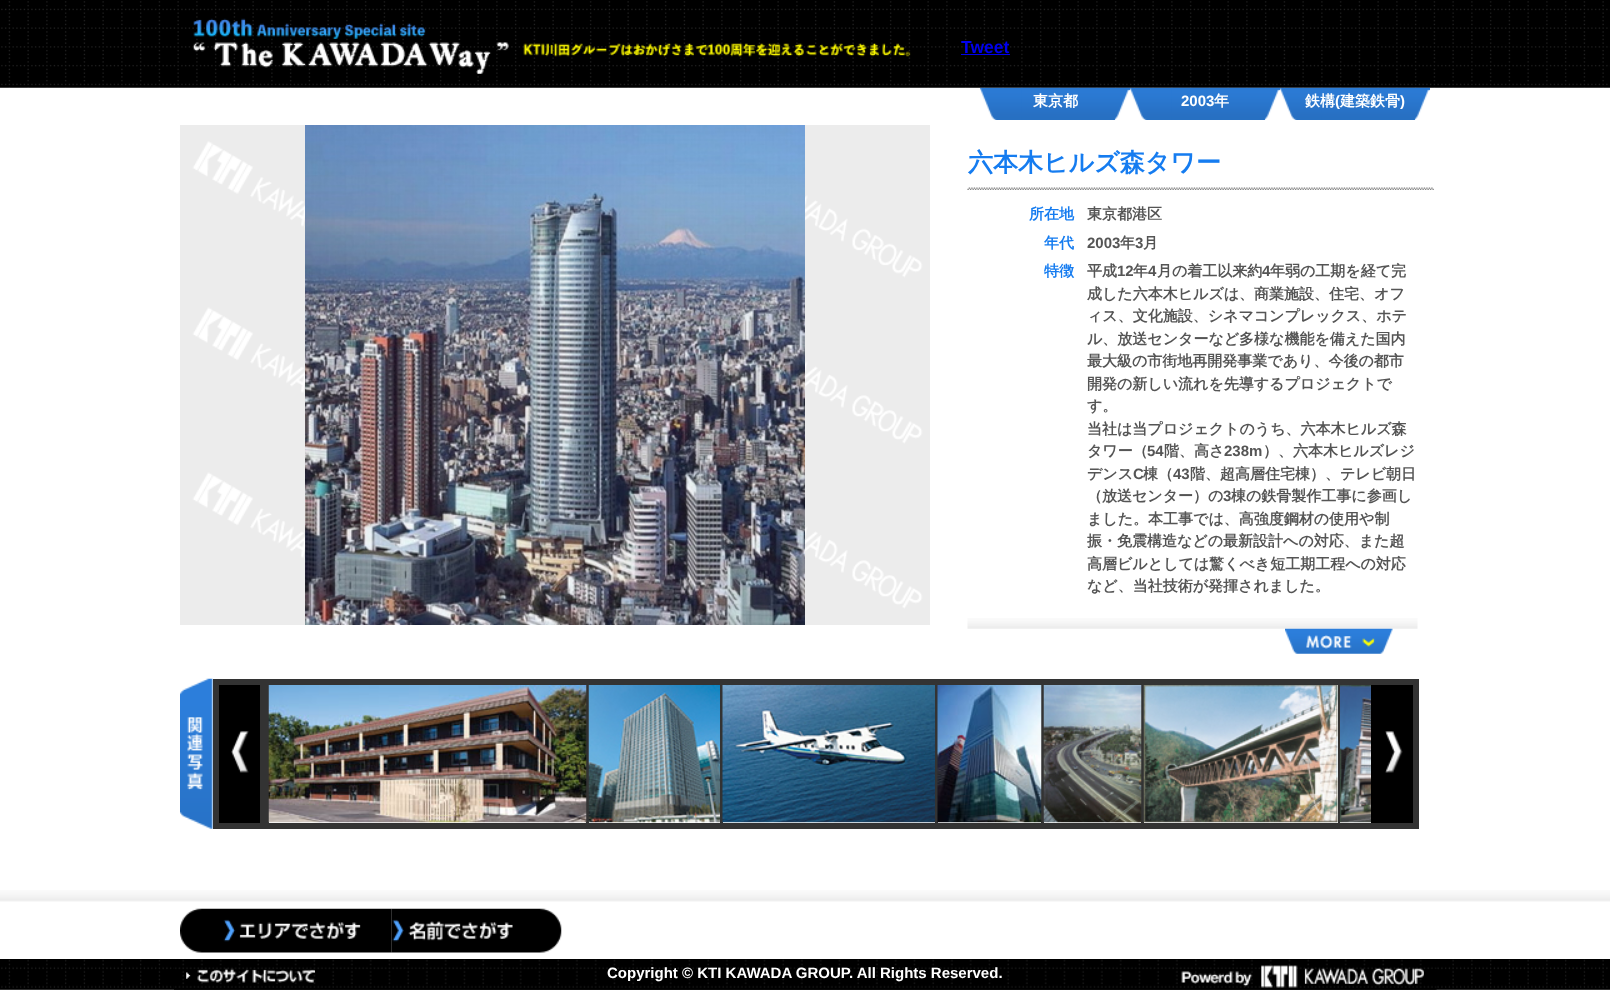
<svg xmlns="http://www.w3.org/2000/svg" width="1610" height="990">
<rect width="100%" height="100%" fill="#fff"/>
<image x="0" y="87" width="1610" height="1" href="media/1.png"/>
<image x="980" y="87" width="150" height="33" href="media/5.png"/>
<image x="1021" y="87" width="109" height="33" href="media/6.png"/>
<image x="1130" y="87" width="150" height="33" href="media/5.png"/>
<image x="1171" y="87" width="109" height="33" href="media/6.png"/>
<image x="1280" y="87" width="150" height="33" href="media/7.png"/>
<image x="1321" y="87" width="109" height="33" href="media/6.png"/>
<image x="0" y="0" width="1610" height="88" href="media/2.png"/>
<image x="193" y="18" width="316" height="56" href="media/3.png"/>
<image x="523" y="43" width="388" height="14" href="media/4.png"/>
<text x="961" y="53" style="font-family:Liberation Sans;font-size:17.5px;font-weight:bold;fill:#00e">Tweet</text>
<rect x="961" y="54" width="49" height="1" fill="#00e"/>
<text x="1033" y="106" style="font-family:WenQuanYi Zen Hei;font-size:15px;font-weight:bold;fill:#fff">東京都</text>
<text x="1181" y="106" style="font-family:Liberation Sans;font-size:15px;font-weight:bold;fill:#fff">2003</text>
<text x="1214" y="106" style="font-family:WenQuanYi Zen Hei;font-size:15px;font-weight:bold;fill:#fff">年</text>
<text x="1305" y="106" style="font-family:WenQuanYi Zen Hei;font-size:15px;font-weight:bold;fill:#fff">鉄構</text>
<text x="1335" y="106" style="font-family:Liberation Sans;font-size:15px;font-weight:bold;fill:#fff">(</text>
<text x="1340" y="106" style="font-family:WenQuanYi Zen Hei;font-size:15px;font-weight:bold;fill:#fff">建築鉄骨</text>
<text x="1400" y="106" style="font-family:Liberation Sans;font-size:15px;font-weight:bold;fill:#fff">)</text>
<image x="180" y="125" width="750" height="500" href="media/8.png"/>
<image x="305" y="125" width="500" height="500" href="media/9.png"/>
<image x="967" y="618" width="451" height="11" href="media/10.png"/>
<text x="968" y="171" style="font-family:WenQuanYi Zen Hei;font-size:25px;font-weight:bold;fill:#157cf0">六本木ヒルズ森タワー</text>
<image x="967" y="187" width="467" height="3" href="media/11.png"/>
<text x="1029" y="219" style="font-family:WenQuanYi Zen Hei;font-size:15px;font-weight:bold;fill:#157cf0">所在地</text>
<text x="1087" y="219" style="font-family:WenQuanYi Zen Hei;font-size:15px;font-weight:bold;fill:#555">東京都港区</text>
<text x="1044" y="248" style="font-family:WenQuanYi Zen Hei;font-size:15px;font-weight:bold;fill:#157cf0">年代</text>
<text x="1087" y="248" style="font-family:Liberation Sans;font-size:15px;font-weight:bold;fill:#555">2003</text>
<text x="1120" y="248" style="font-family:WenQuanYi Zen Hei;font-size:15px;font-weight:bold;fill:#555">年</text>
<text x="1135" y="248" style="font-family:Liberation Sans;font-size:15px;font-weight:bold;fill:#555">3</text>
<text x="1143" y="248" style="font-family:WenQuanYi Zen Hei;font-size:15px;font-weight:bold;fill:#555">月</text>
<text x="1044" y="276" style="font-family:WenQuanYi Zen Hei;font-size:15px;font-weight:bold;fill:#157cf0">特徴</text>
<text x="1087" y="276" style="font-family:WenQuanYi Zen Hei;font-size:15px;font-weight:bold;fill:#555">平成</text>
<text x="1117" y="276" style="font-family:Liberation Sans;font-size:15px;font-weight:bold;fill:#555">12</text>
<text x="1133" y="276" style="font-family:WenQuanYi Zen Hei;font-size:15px;font-weight:bold;fill:#555">年</text>
<text x="1148" y="276" style="font-family:Liberation Sans;font-size:15px;font-weight:bold;fill:#555">4</text>
<text x="1157" y="276" style="font-family:WenQuanYi Zen Hei;font-size:15px;font-weight:bold;fill:#555">月の着工以来約</text>
<text x="1262" y="276" style="font-family:Liberation Sans;font-size:15px;font-weight:bold;fill:#555">4</text>
<text x="1270" y="276" style="font-family:WenQuanYi Zen Hei;font-size:15px;font-weight:bold;fill:#555">年弱の工期を経て完</text>
<text x="1087" y="299" style="font-family:WenQuanYi Zen Hei;font-size:15px;font-weight:bold;fill:#555">成した六本木ヒルズは、商業施設、住宅、オフ</text>
<text x="1087" y="321" style="font-family:WenQuanYi Zen Hei;font-size:15px;font-weight:bold;fill:#555">ィス、文化施設、シネマコンプレックス、ホテ</text>
<text x="1087" y="344" style="font-family:WenQuanYi Zen Hei;font-size:15px;font-weight:bold;fill:#555">ル、放送センターなど多様な機能を備えた国内</text>
<text x="1087" y="366" style="font-family:WenQuanYi Zen Hei;font-size:15px;font-weight:bold;fill:#555">最大級の市街地再開発事業であり、今後の都市</text>
<text x="1087" y="389" style="font-family:WenQuanYi Zen Hei;font-size:15px;font-weight:bold;fill:#555">開発の新しい流れを先導するプロジェクトで</text>
<text x="1087" y="411" style="font-family:WenQuanYi Zen Hei;font-size:15px;font-weight:bold;fill:#555">す。</text>
<text x="1087" y="434" style="font-family:WenQuanYi Zen Hei;font-size:15px;font-weight:bold;fill:#555">当社は当プロジェクトのうち、六本木ヒルズ森</text>
<text x="1087" y="456" style="font-family:WenQuanYi Zen Hei;font-size:15px;font-weight:bold;fill:#555">タワー（</text>
<text x="1147" y="456" style="font-family:Liberation Sans;font-size:15px;font-weight:bold;fill:#555">54</text>
<text x="1164" y="456" style="font-family:WenQuanYi Zen Hei;font-size:15px;font-weight:bold;fill:#555">階、高さ</text>
<text x="1224" y="456" style="font-family:Liberation Sans;font-size:15px;font-weight:bold;fill:#555">238m</text>
<text x="1263" y="456" style="font-family:WenQuanYi Zen Hei;font-size:15px;font-weight:bold;fill:#555">）、六本木ヒルズレジ</text>
<text x="1087" y="479" style="font-family:WenQuanYi Zen Hei;font-size:15px;font-weight:bold;fill:#555">デンス</text>
<text x="1133" y="479" style="font-family:Liberation Sans;font-size:15px;font-weight:bold;fill:#555">C</text>
<text x="1143" y="479" style="font-family:WenQuanYi Zen Hei;font-size:15px;font-weight:bold;fill:#555">棟（</text>
<text x="1173" y="479" style="font-family:Liberation Sans;font-size:15px;font-weight:bold;fill:#555">43</text>
<text x="1190" y="479" style="font-family:WenQuanYi Zen Hei;font-size:15px;font-weight:bold;fill:#555">階、超高層住宅棟）、テレビ朝日</text>
<text x="1087" y="501" style="font-family:WenQuanYi Zen Hei;font-size:15px;font-weight:bold;fill:#555">（放送センター）の</text>
<text x="1223" y="501" style="font-family:Liberation Sans;font-size:15px;font-weight:bold;fill:#555">3</text>
<text x="1231" y="501" style="font-family:WenQuanYi Zen Hei;font-size:15px;font-weight:bold;fill:#555">棟の鉄骨製作工事に参画し</text>
<text x="1087" y="524" style="font-family:WenQuanYi Zen Hei;font-size:15px;font-weight:bold;fill:#555">ました。本工事では、高強度鋼材の使用や制</text>
<text x="1087" y="546" style="font-family:WenQuanYi Zen Hei;font-size:15px;font-weight:bold;fill:#555">振・免震構造などの最新設計への対応、また超</text>
<text x="1087" y="569" style="font-family:WenQuanYi Zen Hei;font-size:15px;font-weight:bold;fill:#555">高層ビルとしては驚くべき短工期工程への対応</text>
<text x="1087" y="591" style="font-family:WenQuanYi Zen Hei;font-size:15px;font-weight:bold;fill:#555">など、当社技術が発揮されました。</text>
<image x="1285" y="628" width="108" height="26" href="media/12.png"/>
<image x="180" y="678" width="33" height="151" href="media/13.png"/>
<rect x="213" y="679" width="1206" height="150" fill="#333"/>
<rect x="219" y="685" width="41" height="138" fill="#000"/>
<image x="231" y="731" width="18" height="42" href="media/14.png"/>
<rect x="269" y="822" width="317" height="1" fill="#fff"/>
<image x="268" y="685" width="319" height="138" href="media/15.png"/>
<rect x="589" y="822" width="131" height="1" fill="#fff"/>
<image x="588" y="685" width="132" height="138" href="media/16.png"/>
<rect x="723" y="822" width="212" height="1" fill="#fff"/>
<image x="722" y="685" width="213" height="138" href="media/17.png"/>
<rect x="938" y="822" width="103" height="1" fill="#fff"/>
<image x="937" y="685" width="105" height="138" href="media/18.png"/>
<rect x="1044" y="822" width="97" height="1" fill="#fff"/>
<image x="1043" y="685" width="99" height="138" href="media/19.png"/>
<rect x="1144" y="685" width="194" height="138" fill="#fff"/>
<image x="1143" y="685" width="195" height="138" href="media/20.png"/>
<rect x="1340" y="822" width="31" height="1" fill="#fff"/>
<image x="1340" y="685" width="31" height="138" href="media/21.png"/>
<rect x="1371" y="685" width="42" height="138" fill="#000"/>
<image x="1385" y="731" width="18" height="42" href="media/22.png"/>
<image x="0" y="890" width="1610" height="12" href="media/23.png"/>
<image x="180" y="908" width="212" height="45" href="media/24.png"/>
<image x="391" y="908" width="171" height="45" href="media/25.png"/>
<image x="0" y="959" width="1610" height="31" href="media/26.png"/>
<image x="174" y="959" width="1263" height="31" href="media/27.png"/>
<image x="186" y="968" width="129" height="15" href="media/28.png"/>
<text x="607" y="978" style="font-family:Liberation Sans;font-size:15px;font-weight:bold;fill:#fff">Copyright © KTI KAWADA GROUP. All Rights Reserved.</text>
<image x="1181" y="965" width="243" height="23" href="media/29.png"/>
</svg>
